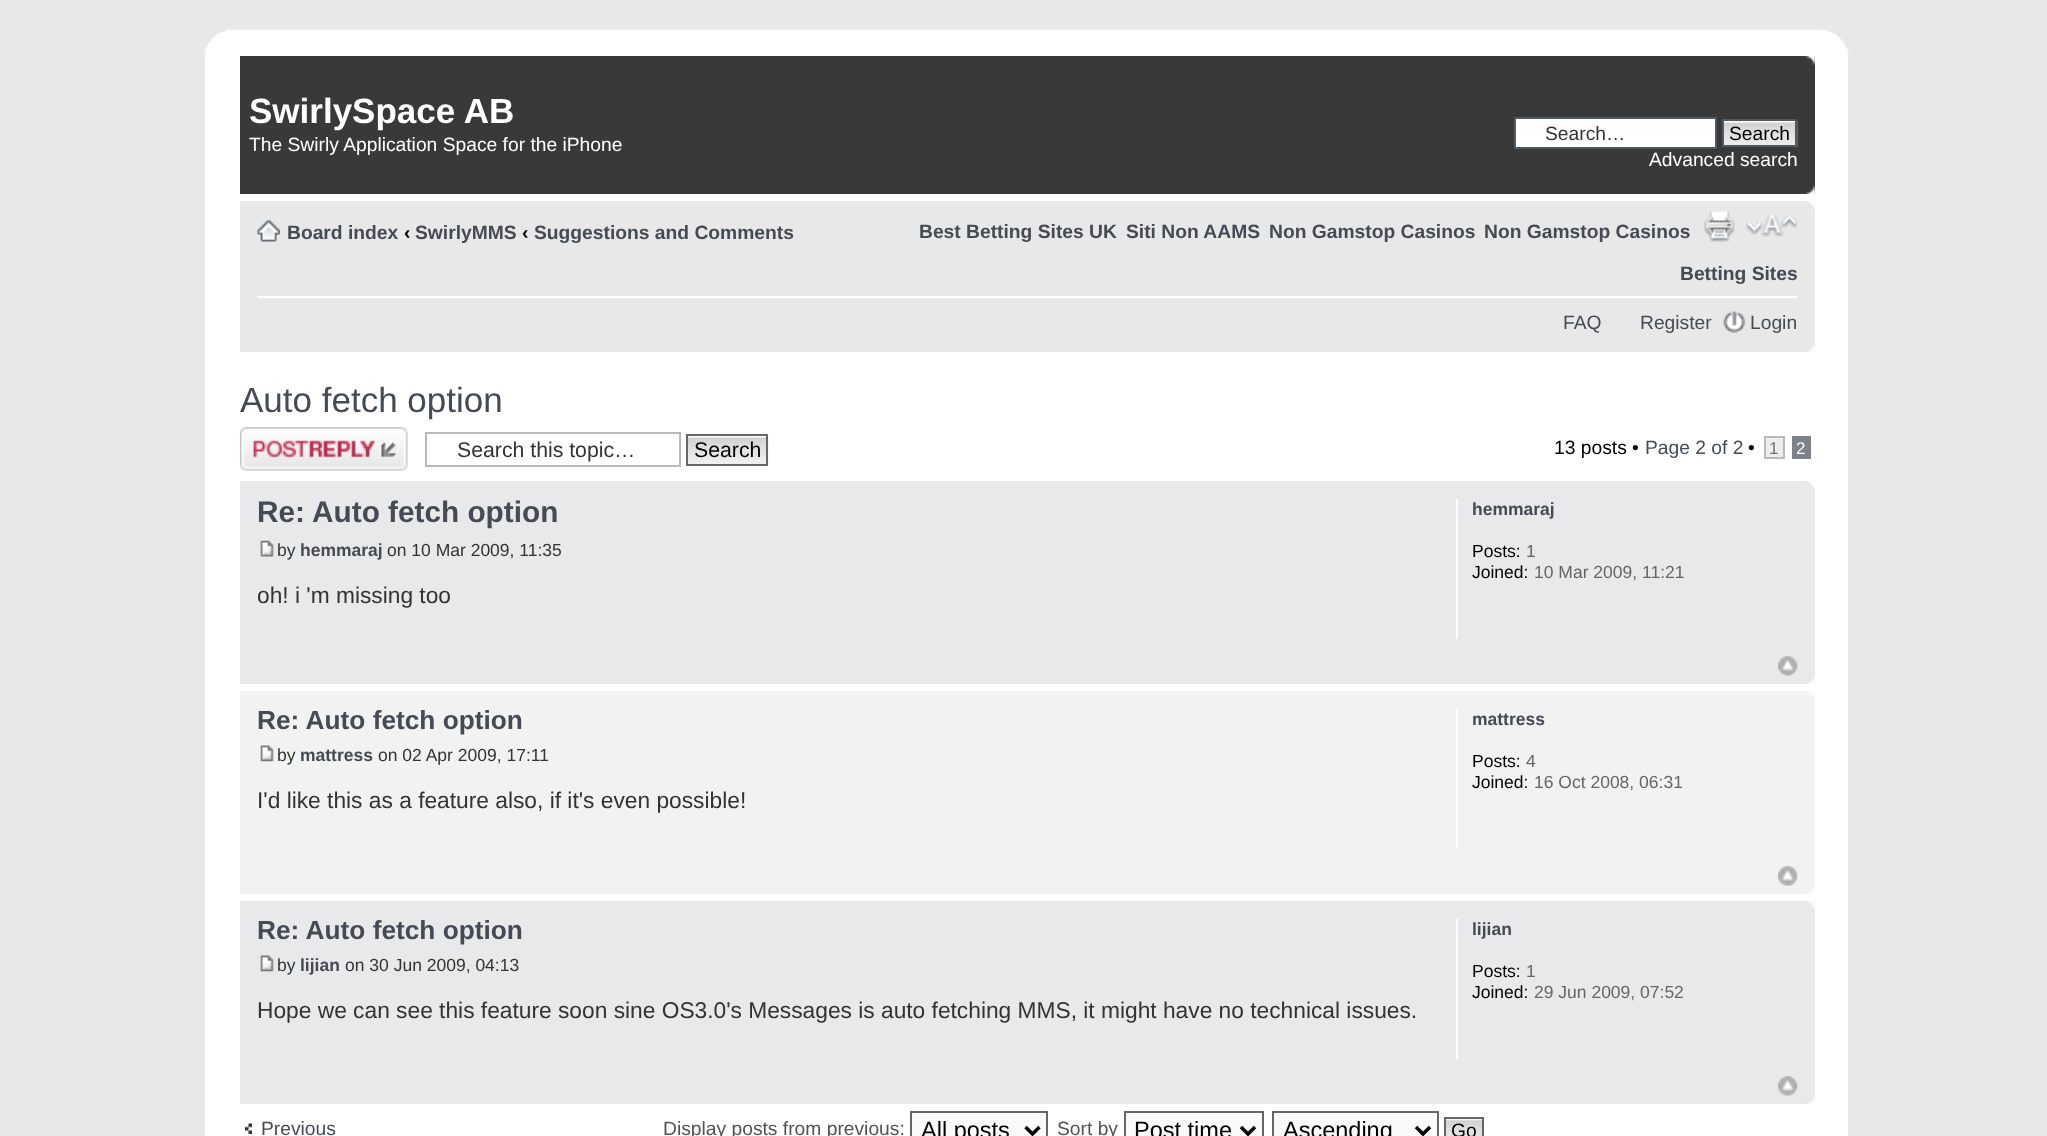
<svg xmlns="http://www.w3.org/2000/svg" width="2047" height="1136">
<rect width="100%" height="100%" fill="#e8e8e8"/>
<image x="204" y="29" width="26" height="27" href="media/1.png"/>
<image x="228" y="29" width="1592" height="27" href="media/2.png"/>
<image x="1819" y="29" width="30" height="27" href="media/3.png"/>
<rect x="205" y="56" width="1643" height="1080" fill="#fff"/>
<rect x="240" y="56" width="1575" height="138" fill="#393939"/>
<image x="1805" y="56" width="10" height="9" href="media/4.png"/>
<text x="249" y="123" style="font-family:Liberation Sans;font-size:35px;font-weight:bold;fill:#fff">SwirlySpace AB</text>
<text x="249" y="151" style="font-family:Liberation Sans;font-size:19.25px;fill:#fff">The Swirly Application Space for the iPhone</text>
<rect x="1515" y="118" width="201" height="30" fill="#fff" stroke="#4d5963" stroke-width="2"/>
<text x="1545" y="140" style="font-family:Liberation Sans;font-size:19.25px;fill:#333">Search…</text>
<image x="1724" y="120" width="74" height="27" href="media/5.png"/>
<rect x="1723" y="120" width="73" height="26" fill="none" stroke="#4d5963" stroke-width="2"/>
<text x="1729" y="140" style="font-family:Liberation Sans;font-size:19.25px;fill:#000">Search</text>
<text x="1649" y="166" style="font-family:Liberation Sans;font-size:19.25px;fill:#fff">Advanced search</text>
<image x="1805" y="185" width="10" height="9" href="media/6.png"/>
<rect x="240" y="201" width="1575" height="151" fill="#e8e8e8"/>
<image x="1807" y="201" width="8" height="9" href="media/7.png"/>
<rect x="257" y="296" width="1540" height="2" fill="#fff"/>
<image x="257" y="220" width="23" height="22" href="media/8.png"/>
<text x="287" y="239" style="font-family:Liberation Sans;font-size:19.25px;font-weight:bold;fill:#454b54">Board index</text>
<text x="404" y="239" style="font-family:Liberation Sans;font-size:19.25px;font-weight:bold;fill:#000">‹</text>
<text x="415" y="239" style="font-family:Liberation Sans;font-size:19.25px;font-weight:bold;fill:#454b54">SwirlyMMS</text>
<text x="522" y="239" style="font-family:Liberation Sans;font-size:19.25px;font-weight:bold;fill:#000">‹</text>
<text x="534" y="239" style="font-family:Liberation Sans;font-size:19.25px;font-weight:bold;fill:#454b54">Suggestions and Comments</text>
<text x="919" y="238" style="font-family:Liberation Sans;font-size:19.25px;font-weight:bold;fill:#454b54">Best Betting Sites UK</text>
<text x="1126" y="238" style="font-family:Liberation Sans;font-size:19.25px;font-weight:bold;fill:#454b54">Siti Non AAMS</text>
<text x="1269" y="238" style="font-family:Liberation Sans;font-size:19.25px;font-weight:bold;fill:#454b54">Non Gamstop Casinos</text>
<text x="1484" y="238" style="font-family:Liberation Sans;font-size:19.25px;font-weight:bold;fill:#454b54">Non Gamstop Casinos</text>
<image x="1704" y="211" width="31" height="31" href="media/9.png"/>
<image x="1746" y="215" width="51" height="22" href="media/10.png"/>
<text x="1680" y="280" style="font-family:Liberation Sans;font-size:19.25px;font-weight:bold;fill:#454b54">Betting Sites</text>
<text x="1563" y="329" style="font-family:Liberation Sans;font-size:19.25px;fill:#454b54">FAQ</text>
<text x="1640" y="329" style="font-family:Liberation Sans;font-size:19.25px;fill:#454b54">Register</text>
<image x="1723" y="311" width="23" height="22" href="media/11.png"/>
<text x="1750" y="329" style="font-family:Liberation Sans;font-size:19.25px;fill:#454b54">Login</text>
<image x="1807" y="344" width="8" height="8" href="media/12.png"/>
<text x="240" y="412" style="font-family:Liberation Sans;font-size:35px;fill:#454b54">Auto fetch option</text>
<image x="239" y="427" width="169" height="44" href="media/13.png"/>
<rect x="426" y="433" width="254" height="33" fill="none" stroke="#b9babb" stroke-width="2"/>
<text x="457" y="457" style="font-family:Liberation Sans;font-size:21.25px;fill:#333">Search this topic…</text>
<image x="688" y="436" width="81" height="30" href="media/14.png"/>
<rect x="687" y="435" width="80" height="30" fill="none" stroke="#666" stroke-width="2"/>
<text x="694" y="457" style="font-family:Liberation Sans;font-size:21.25px;fill:#000">Search</text>
<text x="1554" y="454" style="font-family:Liberation Sans;font-size:19.25px;fill:#000">13 posts •</text>
<text x="1645" y="454" style="font-family:Liberation Sans;font-size:19.25px;fill:#454b54">Page 2 of 2</text>
<text x="1748" y="454" style="font-family:Liberation Sans;font-size:19.25px;fill:#000">•</text>
<rect x="1765" y="437" width="19" height="21" fill="#ededed" stroke="#b9babb" stroke-width="2"/>
<text x="1769" y="454" style="font-family:Liberation Sans;font-size:17px;fill:#717377">1</text>
<rect x="1792" y="436" width="19" height="23" fill="#7b828a"/>
<text x="1796" y="454" style="font-family:Liberation Sans;font-size:17px;fill:#fff">2</text>
<rect x="240" y="481" width="1575" height="203" fill="#e8e9eb"/>
<image x="1807" y="481" width="8" height="9" href="media/15.png"/>
<text x="257" y="522" style="font-family:Liberation Sans;font-size:29.75px;font-weight:bold;fill:#454b54">Re: Auto fetch option</text>
<image x="260" y="540" width="14" height="17" href="media/16.png"/>
<text x="277" y="556" style="font-family:Liberation Sans;font-size:17.5px;fill:#333">by</text>
<text x="300" y="556" style="font-family:Liberation Sans;font-size:17.5px;font-weight:bold;fill:#454b54">hemmaraj</text>
<text x="387" y="556" style="font-family:Liberation Sans;font-size:17.5px;fill:#333">on 10 Mar 2009, 11:35</text>
<text x="257" y="603" style="font-family:Liberation Sans;font-size:22.75px;fill:#333">oh! i 'm missing too</text>
<rect x="1456" y="499" width="2" height="140" fill="#fff"/>
<text x="1472" y="515" style="font-family:Liberation Sans;font-size:17.5px;font-weight:bold;fill:#454b54">hemmaraj</text>
<text x="1472" y="557" style="font-family:Liberation Sans;font-size:17.5px;fill:#000">Posts:</text>
<text x="1526" y="557" style="font-family:Liberation Sans;font-size:17.5px;fill:#666">1</text>
<text x="1472" y="578" style="font-family:Liberation Sans;font-size:17.5px;fill:#000">Joined:</text>
<text x="1534" y="578" style="font-family:Liberation Sans;font-size:17.5px;fill:#666">10 Mar 2009, 11:21</text>
<image x="1778" y="656" width="20" height="20" href="media/17.png"/>
<image x="1806" y="676" width="9" height="8" href="media/18.png"/>
<rect x="240" y="691" width="1575" height="203" fill="#f1f2f2"/>
<image x="1808" y="691" width="7" height="7" href="media/19.png"/>
<text x="257" y="729" style="font-family:Liberation Sans;font-size:26.25px;font-weight:bold;fill:#454b54">Re: Auto fetch option</text>
<image x="260" y="745" width="14" height="17" href="media/20.png"/>
<text x="277" y="761" style="font-family:Liberation Sans;font-size:17.5px;fill:#333">by</text>
<text x="300" y="761" style="font-family:Liberation Sans;font-size:17.5px;font-weight:bold;fill:#454b54">mattress</text>
<text x="378" y="761" style="font-family:Liberation Sans;font-size:17.5px;fill:#333">on 02 Apr 2009, 17:11</text>
<text x="257" y="808" style="font-family:Liberation Sans;font-size:22.75px;fill:#333">I'd like this as a feature also, if it's even possible!</text>
<rect x="1456" y="709" width="2" height="140" fill="#fff"/>
<text x="1472" y="725" style="font-family:Liberation Sans;font-size:17.5px;font-weight:bold;fill:#454b54">mattress</text>
<text x="1472" y="767" style="font-family:Liberation Sans;font-size:17.5px;fill:#000">Posts:</text>
<text x="1526" y="767" style="font-family:Liberation Sans;font-size:17.5px;fill:#666">4</text>
<text x="1472" y="788" style="font-family:Liberation Sans;font-size:17.5px;fill:#000">Joined:</text>
<text x="1534" y="788" style="font-family:Liberation Sans;font-size:17.5px;fill:#666">16 Oct 2008, 06:31</text>
<image x="1778" y="866" width="20" height="20" href="media/21.png"/>
<image x="1807" y="887" width="8" height="7" href="media/22.png"/>
<rect x="240" y="901" width="1575" height="203" fill="#e8e9eb"/>
<image x="1807" y="901" width="8" height="9" href="media/15.png"/>
<text x="257" y="939" style="font-family:Liberation Sans;font-size:26.25px;font-weight:bold;fill:#454b54">Re: Auto fetch option</text>
<image x="260" y="955" width="14" height="17" href="media/23.png"/>
<text x="277" y="971" style="font-family:Liberation Sans;font-size:17.5px;fill:#333">by</text>
<text x="300" y="971" style="font-family:Liberation Sans;font-size:17.5px;font-weight:bold;fill:#454b54">lijian</text>
<text x="345" y="971" style="font-family:Liberation Sans;font-size:17.5px;fill:#333">on 30 Jun 2009, 04:13</text>
<text x="257" y="1018" style="font-family:Liberation Sans;font-size:22.75px;fill:#333">Hope we can see this feature soon sine OS3.0's Messages is auto fetching MMS, it might have no technical issues.</text>
<rect x="1456" y="919" width="2" height="140" fill="#fff"/>
<text x="1472" y="935" style="font-family:Liberation Sans;font-size:17.5px;font-weight:bold;fill:#454b54">lijian</text>
<text x="1472" y="977" style="font-family:Liberation Sans;font-size:17.5px;fill:#000">Posts:</text>
<text x="1526" y="977" style="font-family:Liberation Sans;font-size:17.5px;fill:#666">1</text>
<text x="1472" y="998" style="font-family:Liberation Sans;font-size:17.5px;fill:#000">Joined:</text>
<text x="1534" y="998" style="font-family:Liberation Sans;font-size:17.5px;fill:#666">29 Jun 2009, 07:52</text>
<image x="1778" y="1076" width="20" height="20" href="media/17.png"/>
<image x="1806" y="1096" width="9" height="8" href="media/18.png"/>
<image x="245" y="1123" width="7" height="11" href="media/24.png"/>
<text x="261" y="1135" style="font-family:Liberation Sans;font-size:19.25px;fill:#454b54">Previous</text>
<text x="663" y="1135" style="font-family:Liberation Sans;font-size:19.25px;fill:#525357">Display posts from previous:</text>
<rect x="911" y="1112" width="136" height="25" fill="#fafafa" stroke="#666" stroke-width="2"/>
<path d="M1025.5 1127l7 7l7-7" fill="none" stroke="#000" stroke-width="3.5"/>
<text x="921" y="1138" style="font-family:Liberation Sans;font-size:23.5px;fill:#000">All posts</text>
<text x="1057" y="1135" style="font-family:Liberation Sans;font-size:19.25px;fill:#525357">Sort by</text>
<rect x="1125" y="1112" width="138" height="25" fill="#fafafa" stroke="#666" stroke-width="2"/>
<path d="M1241 1127l7 7l7-7" fill="none" stroke="#000" stroke-width="3.5"/>
<text x="1134" y="1138" style="font-family:Liberation Sans;font-size:23.5px;fill:#000">Post time</text>
<rect x="1273" y="1112" width="165" height="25" fill="#fafafa" stroke="#666" stroke-width="2"/>
<path d="M1416 1127l7 7l7-7" fill="none" stroke="#000" stroke-width="3.5"/>
<text x="1283" y="1138" style="font-family:Liberation Sans;font-size:23.5px;fill:#000">Ascending</text>
<image x="1443" y="1119" width="39" height="17" href="media/25.png"/>
<rect x="1445" y="1118" width="38" height="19" fill="none" stroke="#666" stroke-width="2"/>
<text x="1451" y="1137" style="font-family:Liberation Sans;font-size:19.25px;fill:#000">Go</text>
</svg>
